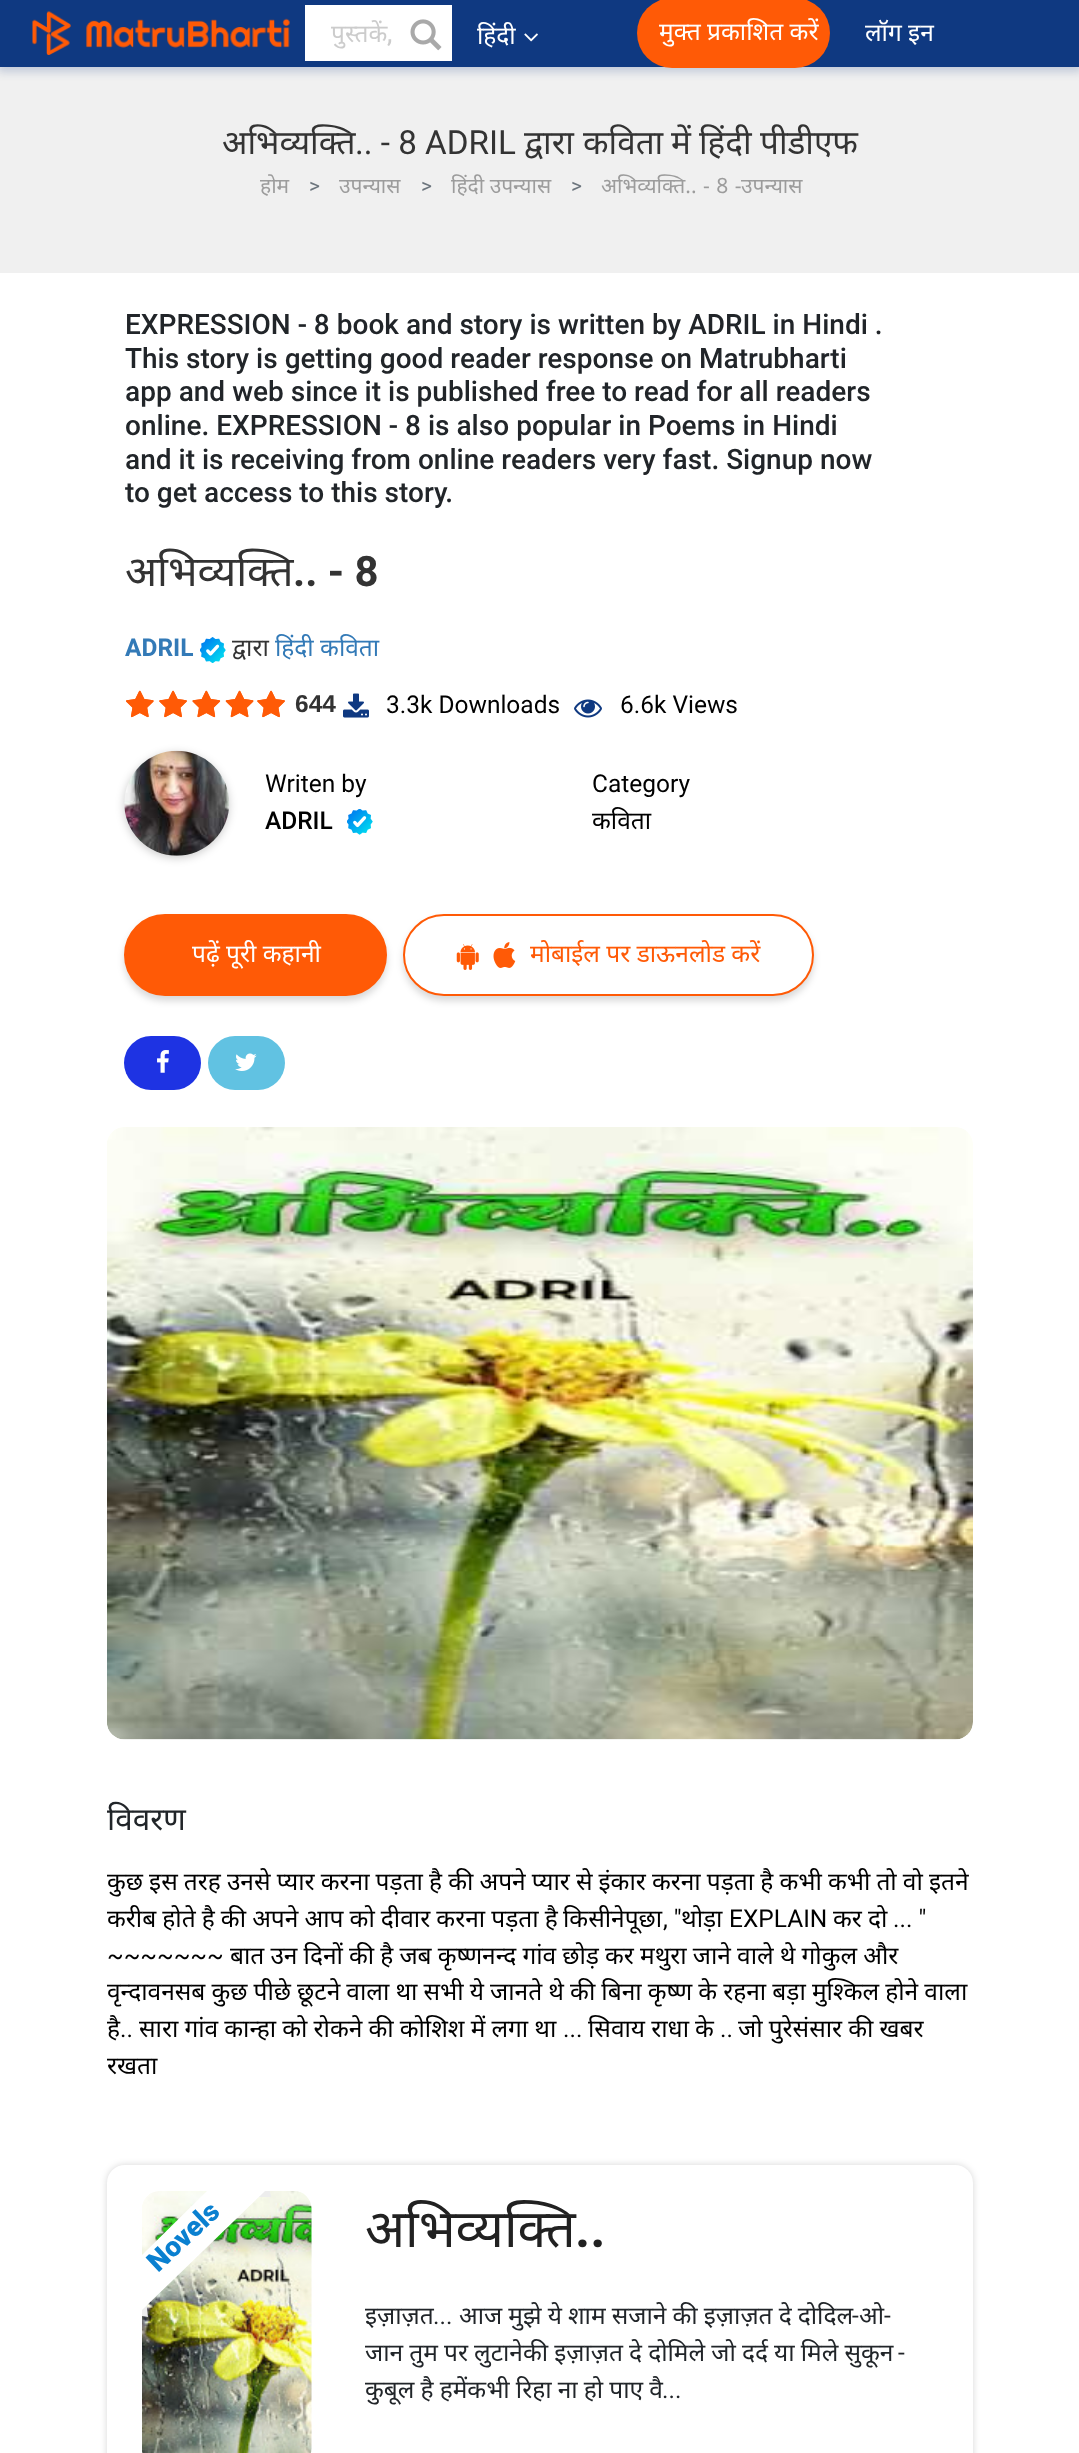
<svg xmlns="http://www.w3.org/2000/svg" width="1079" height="2453">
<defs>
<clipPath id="clip1"><path d="M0 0h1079v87h-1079zm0 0h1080v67h-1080z" clip-rule="evenodd"/></clipPath>
<clipPath id="clip2"><rect x="326" y="16" width="78" height="33"/></clipPath>
</defs>
<rect width="100%" height="100%" fill="#fff"/>
<rect width="1079" height="67" fill="#0f3981"/>
<rect y="67" width="1079" height="206" fill="#f0f0f0"/>
<g clip-path="url(#clip1)">
<rect x="-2" y="2" width="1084" height="70" fill="#0f398133" filter="blur(4.5px)"/>
</g>
<image x="32" y="11" width="258" height="44" href="media/1.png"/>
<rect x="305" y="5" width="147" height="56" fill="#fff"/>
<g clip-path="url(#clip2)">
<text x="331" y="42" style="font-family:Noto Sans;font-size:24.5px;fill:#ccc">पुस्तकें</text>
</g>
<text x="387" y="42" style="font-family:Roboto;font-size:24.5px;font-weight:500;fill:#ccc">,</text>
<image x="410" y="19" width="32" height="32" href="media/2.png"/>
<text x="477" y="44" style="font-family:Noto Sans;font-size:24.5px;fill:#fff">हिंदी</text>
<image x="524" y="33" width="14" height="9" href="media/3.png"/>
<rect x="637" y="-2" width="193" height="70" rx="35" fill="#ff5a06"/>
<text x="659" y="40" style="font-family:Noto Sans;font-size:24.5px;fill:#fff">मुक्त प्रकाशित करें</text>
<text x="865" y="41" style="font-family:Noto Sans;font-size:24.5px;fill:#fff">लॉग इन</text>
<text x="222" y="154" style="font-family:Noto Sans;font-size:33.25px;fill:#333">अभिव्यक्ति</text>
<text x="355" y="154" style="font-family:Roboto;font-size:33.25px;fill:#333">.. - 8 ADRIL</text>
<text x="524" y="154" style="font-family:Noto Sans;font-size:33.25px;fill:#333">द्वारा</text>
<text x="583" y="154" style="font-family:Noto Sans;font-size:33.25px;fill:#333">कविता</text>
<text x="671" y="154" style="font-family:Noto Sans;font-size:33.25px;fill:#333">में</text>
<text x="699" y="154" style="font-family:Noto Sans;font-size:33.25px;fill:#333">हिंदी</text>
<text x="760" y="154" style="font-family:Noto Sans;font-size:33.25px;fill:#333">पीडीएफ</text>
<text x="260" y="193" style="font-family:Noto Sans;font-size:21px;fill:#9c9c9c">होम</text>
<text x="309" y="193" style="font-family:Roboto;font-size:21px;fill:#6c757d">&gt;</text>
<text x="339" y="193" style="font-family:Noto Sans;font-size:21px;fill:#9c9c9c">उपन्यास</text>
<text x="421" y="193" style="font-family:Roboto;font-size:21px;fill:#6c757d">&gt;</text>
<text x="451" y="193" style="font-family:Noto Sans;font-size:21px;fill:#9c9c9c">हिंदी उपन्यास</text>
<text x="571" y="193" style="font-family:Roboto;font-size:21px;fill:#6c757d">&gt;</text>
<text x="601" y="193" word-spacing="1" style="font-family:Noto Sans;font-size:21px;fill:#9c9c9c">अभिव्यक्ति.. - 8 -</text>
<text x="741" y="193" style="font-family:Noto Sans;font-size:21px;fill:#9c9c9c">उपन्यास</text>
<text x="125" y="334" style="font-family:Roboto;font-size:28px;font-weight:500;fill:#212529">EXPRESSION - 8 book and story is written by ADRIL in Hindi .</text>
<text x="125" y="368" style="font-family:Roboto;font-size:28px;font-weight:500;fill:#212529">This story is getting good reader response on Matrubharti</text>
<text x="125" y="401" style="font-family:Roboto;font-size:28px;font-weight:500;fill:#212529">app and web since it is published free to read for all readers</text>
<text x="125" y="435" style="font-family:Roboto;font-size:28px;font-weight:500;fill:#212529">online. EXPRESSION - 8 is also popular in Poems in Hindi</text>
<text x="125" y="469" style="font-family:Roboto;font-size:28px;font-weight:500;fill:#212529">and it is receiving from online readers very fast. Signup now</text>
<text x="125" y="502" style="font-family:Roboto;font-size:28px;font-weight:500;fill:#212529">to get access to this story.</text>
<text x="125" y="586" style="font-family:Noto Sans;font-size:42px;fill:#333">अभिव्यक्ति</text>
<text x="293" y="586" style="font-family:Roboto;font-size:42px;font-weight:bold;fill:#333">.. - 8</text>
<text x="125" y="656" style="font-family:Roboto;font-size:24.5px;font-weight:bold;fill:#337ab7">ADRIL</text>
<image x="200" y="637" width="26" height="26" href="media/4.png"/>
<text x="232" y="656" style="font-family:Noto Sans;font-size:24.5px;fill:#333">द्वारा</text>
<text x="275" y="656" style="font-family:Noto Sans;font-size:24.5px;fill:#337ab7">हिंदी कविता</text>
<image x="126" y="690" width="28" height="28" href="media/5.png"/>
<image x="159" y="690" width="28" height="28" href="media/6.png"/>
<image x="192" y="690" width="29" height="28" href="media/7.png"/>
<image x="225" y="690" width="29" height="28" href="media/8.png"/>
<image x="257" y="690" width="28" height="28" href="media/6.png"/>
<image x="126" y="690" width="28" height="28" href="media/9.png"/>
<image x="159" y="690" width="28" height="28" href="media/10.png"/>
<image x="192" y="690" width="29" height="28" href="media/11.png"/>
<image x="225" y="690" width="29" height="28" href="media/12.png"/>
<image x="257" y="690" width="28" height="28" href="media/10.png"/>
<text x="295" y="712" style="font-family:Liberation Sans;font-size:24.5px;font-weight:bold;fill:#333">644</text>
<image x="343" y="693" width="26" height="25" href="media/13.png"/>
<text x="386" y="713" style="font-family:Roboto;font-size:24.5px;fill:#000">3.3k Downloads</text>
<image x="574" y="699" width="28" height="19" href="media/14.png"/>
<text x="620" y="713" style="font-family:Roboto;font-size:24.5px;fill:#000">6.6k Views</text>
<rect x="124" y="753" width="105" height="105" rx="52.5" fill="#00000033" filter="blur(4.5px)"/>
<image x="124" y="750" width="105" height="106" href="media/15.png"/>
<text x="265" y="792" style="font-family:Roboto;font-size:24.5px;fill:#000">Writen by</text>
<text x="265" y="829" style="font-family:Roboto;font-size:24.5px;font-weight:500;fill:#000">ADRIL</text>
<image x="347" y="809" width="26" height="26" href="media/16.png"/>
<text x="592" y="792" style="font-family:Roboto;font-size:24.5px;fill:#000">Category</text>
<text x="592" y="829" style="font-family:Noto Sans;font-size:24.5px;fill:#000">कविता</text>
<rect x="124" y="919" width="263" height="82" rx="41" fill="#00000026" filter="blur(3.5px)"/>
<rect x="125" y="915" width="261" height="80" rx="40" fill="#ff5a06" stroke="#ff5a06" stroke-width="2"/>
<text x="192" y="962" style="font-family:Noto Sans;font-size:24.5px;fill:#fff">पढ़ें पूरी कहानी</text>
<rect x="403" y="919" width="411" height="82" rx="41" fill="#00000026" filter="blur(3.5px)"/>
<rect x="404" y="915" width="409" height="80" rx="40" fill="#fff" stroke="#ff5a06" stroke-width="2"/>
<image x="456" y="944" width="23" height="26" href="media/17.png"/>
<image x="493" y="942" width="23" height="26" href="media/18.png"/>
<text x="530" y="962" style="font-family:Noto Sans;font-size:24.5px;fill:#ff5a06">मोबाईल पर डाऊनलोड करें</text>
<rect x="124" y="1036" width="77" height="54" rx="27" fill="#1e33e3"/>
<image x="157" y="1050" width="12" height="23" href="media/19.png"/>
<rect x="208" y="1036" width="77" height="54" rx="27" fill="#61c2e2"/>
<image x="235" y="1053" width="22" height="18" href="media/20.png"/>
<image x="107" y="1127" width="866" height="613" href="media/21.png"/>
<text x="107" y="1830" style="font-family:Noto Sans;font-size:31.5px;fill:#212529">विवरण</text>
<text x="107" y="1890" word-spacing="-0.25" style="font-family:Noto Sans;font-size:24.5px;fill:#000">कुछ इस तरह उनसे प्यार करना पड़ता है की अपने प्यार से इंकार करना पड़ता है कभी कभी तो वो इतने</text>
<text x="107" y="1927" word-spacing="-0.25" style="font-family:Noto Sans;font-size:24.5px;fill:#000">करीब होते है की अपने आप को दीवार करना पड़ता है</text>
<text x="563" y="1927" style="font-family:Noto Sans;font-size:24.5px;fill:#000">किसीनेपूछा</text>
<text x="663" y="1927" style="font-family:Roboto;font-size:24.5px;fill:#000">, "</text>
<text x="681" y="1927" style="font-family:Noto Sans;font-size:24.5px;fill:#000">थोड़ा</text>
<text x="729" y="1927" style="font-family:Roboto;font-size:24.5px;fill:#000">EXPLAIN</text>
<text x="833" y="1927" style="font-family:Noto Sans;font-size:24.5px;fill:#000">कर</text>
<text x="868" y="1927" style="font-family:Noto Sans;font-size:24.5px;fill:#000">दो</text>
<text x="893" y="1927" style="font-family:Roboto;font-size:24.5px;fill:#000">... "</text>
<text x="107" y="1964" style="font-family:Roboto;font-size:24.5px;fill:#000">~~~~~~~</text>
<text x="230" y="1964" word-spacing="-0.25" style="font-family:Noto Sans;font-size:24.5px;fill:#000">बात उन दिनों की है जब कृष्णनन्द गांव छोड़ कर मथुरा जाने वाले थे गोकुल और</text>
<text x="107" y="2000" word-spacing="-0.25" style="font-family:Noto Sans;font-size:24.5px;fill:#000">वृन्दावनसब कुछ पीछे छूटने वाला था सभी ये जानते थे की बिना कृष्ण के रहना बड़ा मुश्किल होने वाला</text>
<text x="107" y="2037" style="font-family:Noto Sans;font-size:24.5px;fill:#000">है</text>
<text x="120" y="2037" style="font-family:Roboto;font-size:24.5px;fill:#000">..</text>
<text x="139" y="2037" word-spacing="-0.25" style="font-family:Noto Sans;font-size:24.5px;fill:#000">सारा गांव कान्हा को रोकने की कोशिश में लगा था</text>
<text x="563" y="2037" style="font-family:Roboto;font-size:24.5px;fill:#000">...</text>
<text x="588" y="2037" word-spacing="-0.25" style="font-family:Noto Sans;font-size:24.5px;fill:#000">सिवाय राधा के</text>
<text x="720" y="2037" style="font-family:Roboto;font-size:24.5px;fill:#000">..</text>
<text x="738" y="2037" word-spacing="-0.25" style="font-family:Noto Sans;font-size:24.5px;fill:#000">जो पुरेसंसार की खबर</text>
<text x="107" y="2074" style="font-family:Noto Sans;font-size:24.5px;fill:#000">रखता</text>
<rect x="107" y="2165" width="866" height="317" rx="18" fill="#00000029" filter="blur(3.5px)"/>
<rect x="107" y="2165" width="866" height="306" rx="18" fill="#fff"/>
<image x="142" y="2191" width="170" height="262" href="media/22.png"/>
<path d="M142 2316v-51l6 52z" fill="#ededed"/>
<path d="M270 2191l1 6h-59l31-6z" fill="#ededed"/>
<path d="M142 2255v55l123-119h-58z" fill="#fff"/>
<text x="158" y="2273" transform="rotate(-43 158 2273)" style="font-family:Roboto;font-size:28px;font-weight:900;fill:#0a80d0">Novels</text>
<text x="365" y="2247" style="font-family:Noto Sans;font-size:52.5px;fill:#212121">अभिव्यक्ति</text>
<text x="575" y="2247" style="font-family:Roboto;font-size:52.5px;font-weight:bold;fill:#212121">..</text>
<text x="365" y="2324" style="font-family:Noto Sans;font-size:24.5px;fill:#212529">इज़ाज़त</text>
<text x="459" y="2324" word-spacing="-0.25" style="font-family:Noto Sans;font-size:24.5px;fill:#212529">आज मुझे ये शाम सजाने की इज़ाज़त दे दोदिल</text>
<text x="852" y="2324" style="font-family:Roboto;font-size:24.5px;fill:#212529">-</text>
<text x="859" y="2324" style="font-family:Noto Sans;font-size:24.5px;fill:#212529">ओ</text>
<text x="884" y="2324" style="font-family:Roboto;font-size:24.5px;fill:#212529">-</text>
<text x="433" y="2324" style="font-family:Roboto;font-size:24.5px;fill:#212529">...</text>
<text x="365" y="2361" word-spacing="-0.25" style="font-family:Noto Sans;font-size:24.5px;fill:#212529">जान तुम पर लुटानेकी इज़ाज़त दे दोमिले जो दर्द या मिले सुकून</text>
<text x="898" y="2361" style="font-family:Roboto;font-size:24.5px;fill:#212529">-</text>
<text x="365" y="2398" word-spacing="-0.25" style="font-family:Noto Sans;font-size:24.5px;fill:#212529">कुबूल है हमेंकभी रिहा ना हो पाए वै</text>
<text x="662" y="2398" style="font-family:Roboto;font-size:24.5px;fill:#212529">...</text>
</svg>
